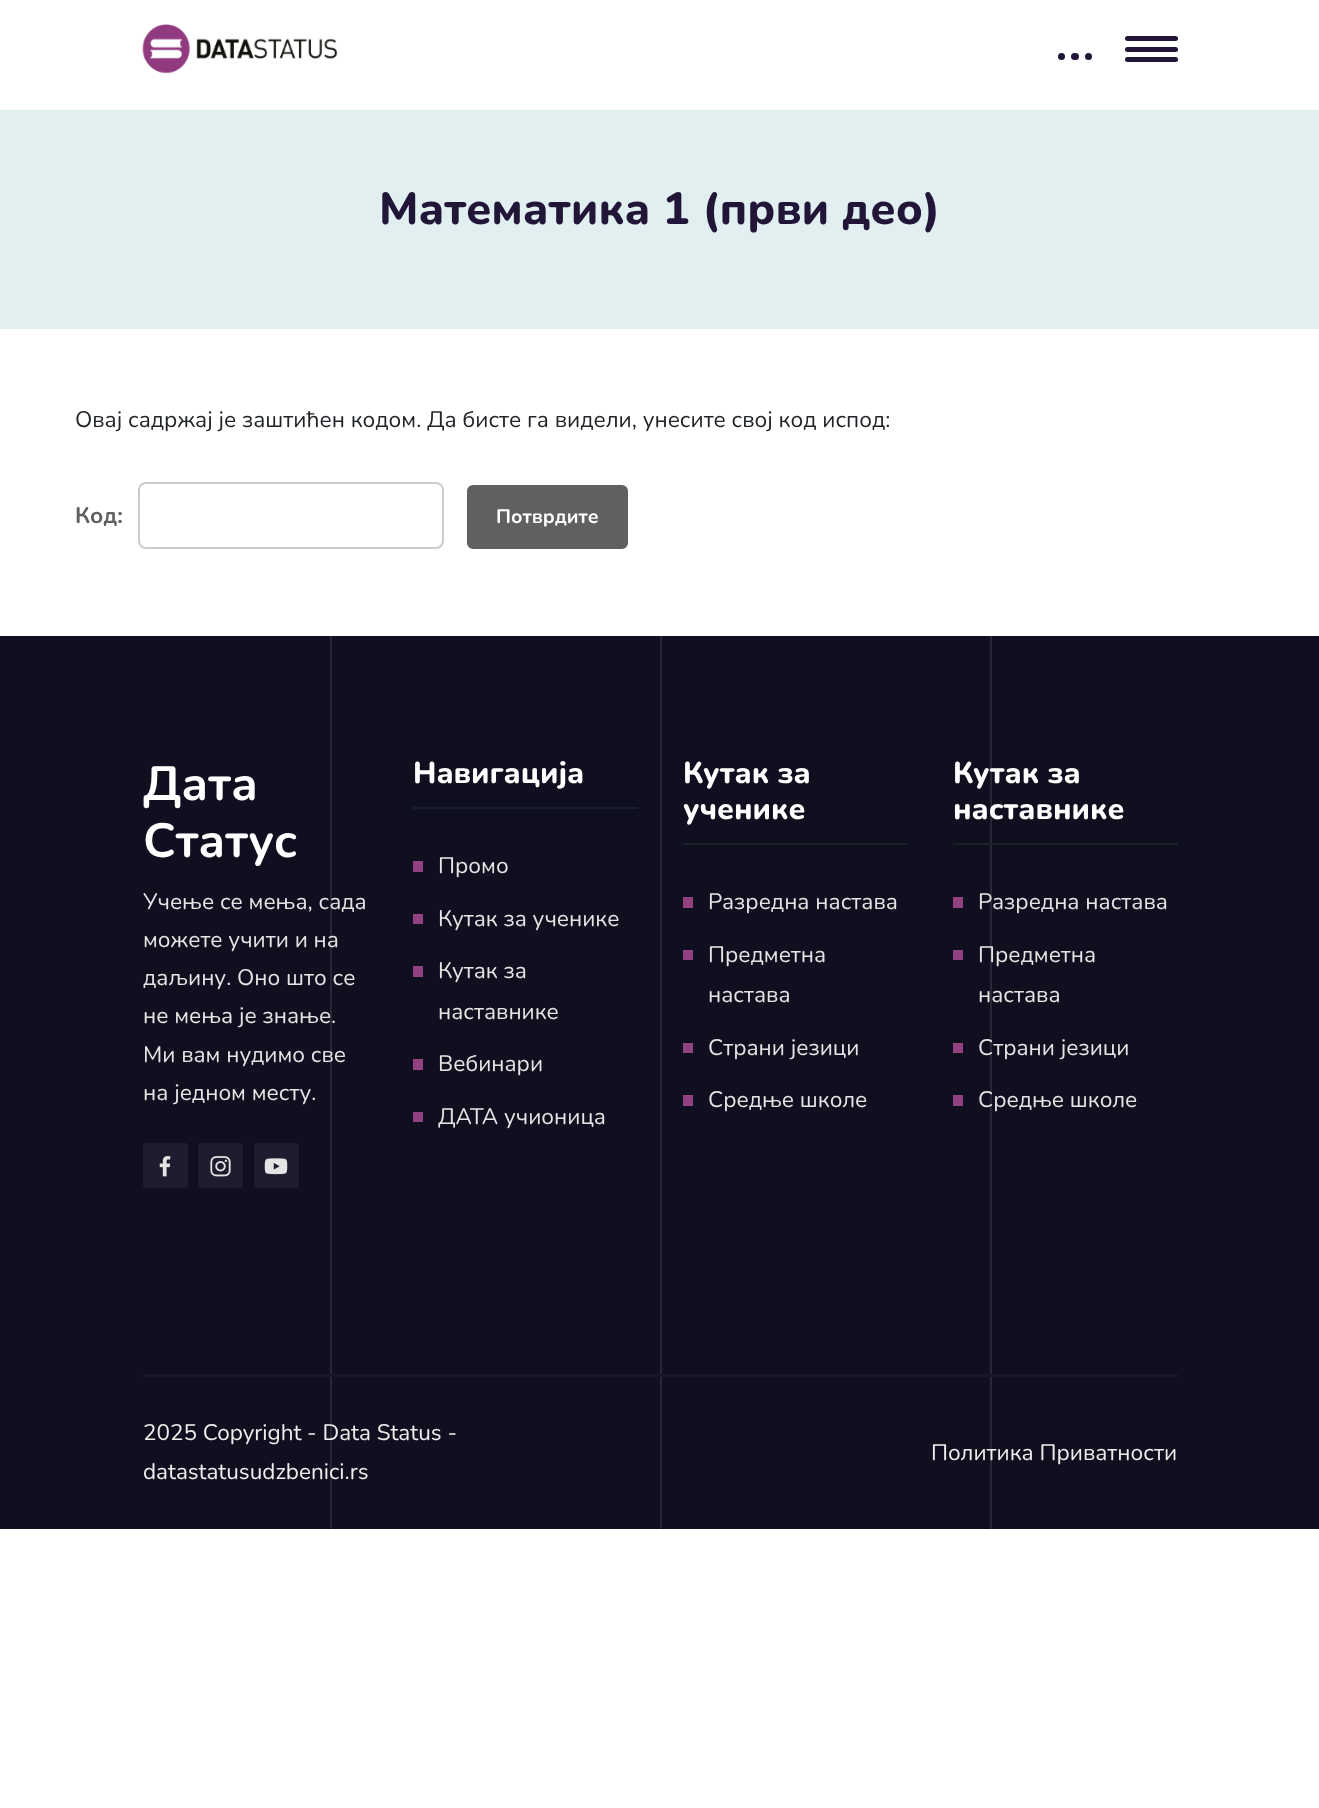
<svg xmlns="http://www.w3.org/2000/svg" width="1319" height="1808">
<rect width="100%" height="100%" fill="#fff"/>
<image x="142" y="24" width="196" height="50" href="media/1.png"/>
<rect x="1125" y="36" width="53" height="5" rx="2.5" fill="#221638"/>
<rect x="1125" y="47" width="53" height="5" rx="2.5" fill="#221638"/>
<rect x="1125" y="57" width="53" height="5" rx="2.5" fill="#221638"/>
<circle cx="1061.5" cy="56.5" r="3.5" fill="#221638"/>
<rect x="1071" y="53" width="8" height="7" rx="3.5" fill="#221638"/>
<circle cx="1088.5" cy="56.5" r="3.5" fill="#221638"/>
<rect y="110" width="1319" height="219" fill="#e1eff1"/>
<text x="379" y="224" style="font-family:Nunito;font-size:45px;font-weight:800;fill:#221638">Математика 1 (први део)</text>
<text x="75" y="427" style="font-family:Nunito;font-size:22.5px;font-weight:200;fill:#212529">Овај садржај је заштићен кодом. Да бисте га видели, унесите свој код испод:</text>
<text x="75" y="523" style="font-family:Nunito;font-size:22.5px;font-weight:bold;fill:#606060">Код:</text>
<rect x="139" y="483" width="304" height="65" rx="7" fill="none" stroke="#ccc" stroke-width="2"/>
<rect x="466" y="484" width="163" height="66" rx="7" fill="#606060" stroke="#fff" stroke-width="2"/>
<text x="496" y="523" style="font-family:Nunito;font-size:19.5px;font-weight:bold;fill:#fff">Потврдите</text>
<rect y="636" width="1319" height="893" fill="#100f1f"/>
<rect x="330" y="636" width="2" height="893" fill="#282735"/>
<rect x="660" y="636" width="2" height="893" fill="#282735"/>
<rect x="990" y="636" width="2" height="893" fill="#282735"/>
<text x="143" y="800" style="font-family:Nunito;font-size:48px;font-weight:bold;fill:#fff">Дата</text>
<text x="143" y="857" style="font-family:Nunito;font-size:48px;font-weight:bold;fill:#fff">Статус</text>
<text x="143" y="909" style="font-family:Nunito;font-size:22.5px;font-weight:200;fill:#e4e4e4">Учење се мења, сада</text>
<text x="143" y="947" style="font-family:Nunito;font-size:22.5px;font-weight:200;fill:#e4e4e4">можете учити и на</text>
<text x="143" y="985" style="font-family:Nunito;font-size:22.5px;font-weight:200;fill:#e4e4e4">даљину. Оно што се</text>
<text x="143" y="1023" style="font-family:Nunito;font-size:22.5px;font-weight:200;fill:#e4e4e4">не мења је знање.</text>
<text x="143" y="1062" style="font-family:Nunito;font-size:22.5px;font-weight:200;fill:#e4e4e4">Ми вам нудимо све</text>
<text x="143" y="1100" style="font-family:Nunito;font-size:22.5px;font-weight:200;fill:#e4e4e4">на једном месту.</text>
<rect x="143" y="1143" width="45" height="45" rx="3" fill="#1e1d2f"/>
<image x="159" y="1156" width="12" height="21" href="media/2.png"/>
<rect x="198" y="1143" width="45" height="45" rx="3" fill="#1e1d2f"/>
<image x="210" y="1156" width="21" height="21" href="media/3.png"/>
<rect x="254" y="1143" width="45" height="45" rx="3" fill="#1e1d2f"/>
<image x="264" y="1158" width="24" height="17" href="media/4.png"/>
<rect x="413" y="807" width="225" height="2" fill="#192129"/>
<text x="413" y="783" style="font-family:Nunito;font-size:30px;font-weight:800;fill:#fff">Навигација</text>
<rect x="413" y="861" width="10" height="11" fill="#924281"/>
<text x="438" y="873" style="font-family:Nunito;font-size:22.5px;font-weight:200;fill:#e4e4e4">Промо</text>
<rect x="413" y="914" width="10" height="10" fill="#924281"/>
<text x="438" y="926" style="font-family:Nunito;font-size:22.5px;font-weight:200;fill:#e4e4e4">Кутак за ученике</text>
<rect x="413" y="966" width="10" height="11" fill="#924281"/>
<text x="438" y="978" style="font-family:Nunito;font-size:22.5px;font-weight:200;fill:#e4e4e4">Кутак за</text>
<text x="438" y="1019" style="font-family:Nunito;font-size:22.5px;font-weight:200;fill:#e4e4e4">наставнике</text>
<rect x="413" y="1059" width="10" height="11" fill="#924281"/>
<text x="438" y="1071" style="font-family:Nunito;font-size:22.5px;font-weight:200;fill:#e4e4e4">Вебинари</text>
<rect x="413" y="1112" width="10" height="10" fill="#924281"/>
<text x="438" y="1124" style="font-family:Nunito;font-size:22.5px;font-weight:200;fill:#e4e4e4">ДАТА учионица</text>
<rect x="683" y="843" width="225" height="2" fill="#192129"/>
<text x="683" y="783" style="font-family:Nunito;font-size:30px;font-weight:800;fill:#fff">Кутак за</text>
<text x="683" y="819" style="font-family:Nunito;font-size:30px;font-weight:800;fill:#fff">ученике</text>
<rect x="683" y="897" width="10" height="11" fill="#924281"/>
<text x="708" y="909" style="font-family:Nunito;font-size:22.5px;font-weight:200;fill:#e4e4e4">Разредна настава</text>
<rect x="683" y="950" width="10" height="10" fill="#924281"/>
<text x="708" y="962" style="font-family:Nunito;font-size:22.5px;font-weight:200;fill:#e4e4e4">Предметна</text>
<text x="708" y="1002" style="font-family:Nunito;font-size:22.5px;font-weight:200;fill:#e4e4e4">настава</text>
<rect x="683" y="1043" width="10" height="10" fill="#924281"/>
<text x="708" y="1055" style="font-family:Nunito;font-size:22.5px;font-weight:200;fill:#e4e4e4">Страни језици</text>
<rect x="683" y="1095" width="10" height="11" fill="#924281"/>
<text x="708" y="1107" style="font-family:Nunito;font-size:22.5px;font-weight:200;fill:#e4e4e4">Средње школе</text>
<rect x="953" y="843" width="225" height="2" fill="#192129"/>
<text x="953" y="783" style="font-family:Nunito;font-size:30px;font-weight:800;fill:#fff">Кутак за</text>
<text x="953" y="819" style="font-family:Nunito;font-size:30px;font-weight:800;fill:#fff">наставнике</text>
<rect x="953" y="897" width="10" height="11" fill="#924281"/>
<text x="978" y="909" style="font-family:Nunito;font-size:22.5px;font-weight:200;fill:#e4e4e4">Разредна настава</text>
<rect x="953" y="950" width="10" height="10" fill="#924281"/>
<text x="978" y="962" style="font-family:Nunito;font-size:22.5px;font-weight:200;fill:#e4e4e4">Предметна</text>
<text x="978" y="1002" style="font-family:Nunito;font-size:22.5px;font-weight:200;fill:#e4e4e4">настава</text>
<rect x="953" y="1043" width="10" height="10" fill="#924281"/>
<text x="978" y="1055" style="font-family:Nunito;font-size:22.5px;font-weight:200;fill:#e4e4e4">Страни језици</text>
<rect x="953" y="1095" width="10" height="11" fill="#924281"/>
<text x="978" y="1107" style="font-family:Nunito;font-size:22.5px;font-weight:200;fill:#e4e4e4">Средње школе</text>
<rect x="143" y="1374" width="1035" height="3" fill="#181726"/>
<text x="143" y="1440" style="font-family:Nunito;font-size:22.5px;font-weight:200;fill:#ededed">2025 Copyright - Data Status -</text>
<text x="143" y="1479" style="font-family:Nunito;font-size:22.5px;font-weight:200;fill:#ededed">datastatusudzbenici.rs</text>
<text x="931" y="1460" style="font-family:Nunito;font-size:22.5px;font-weight:200;fill:#ededed">Политика Приватности</text>
</svg>
